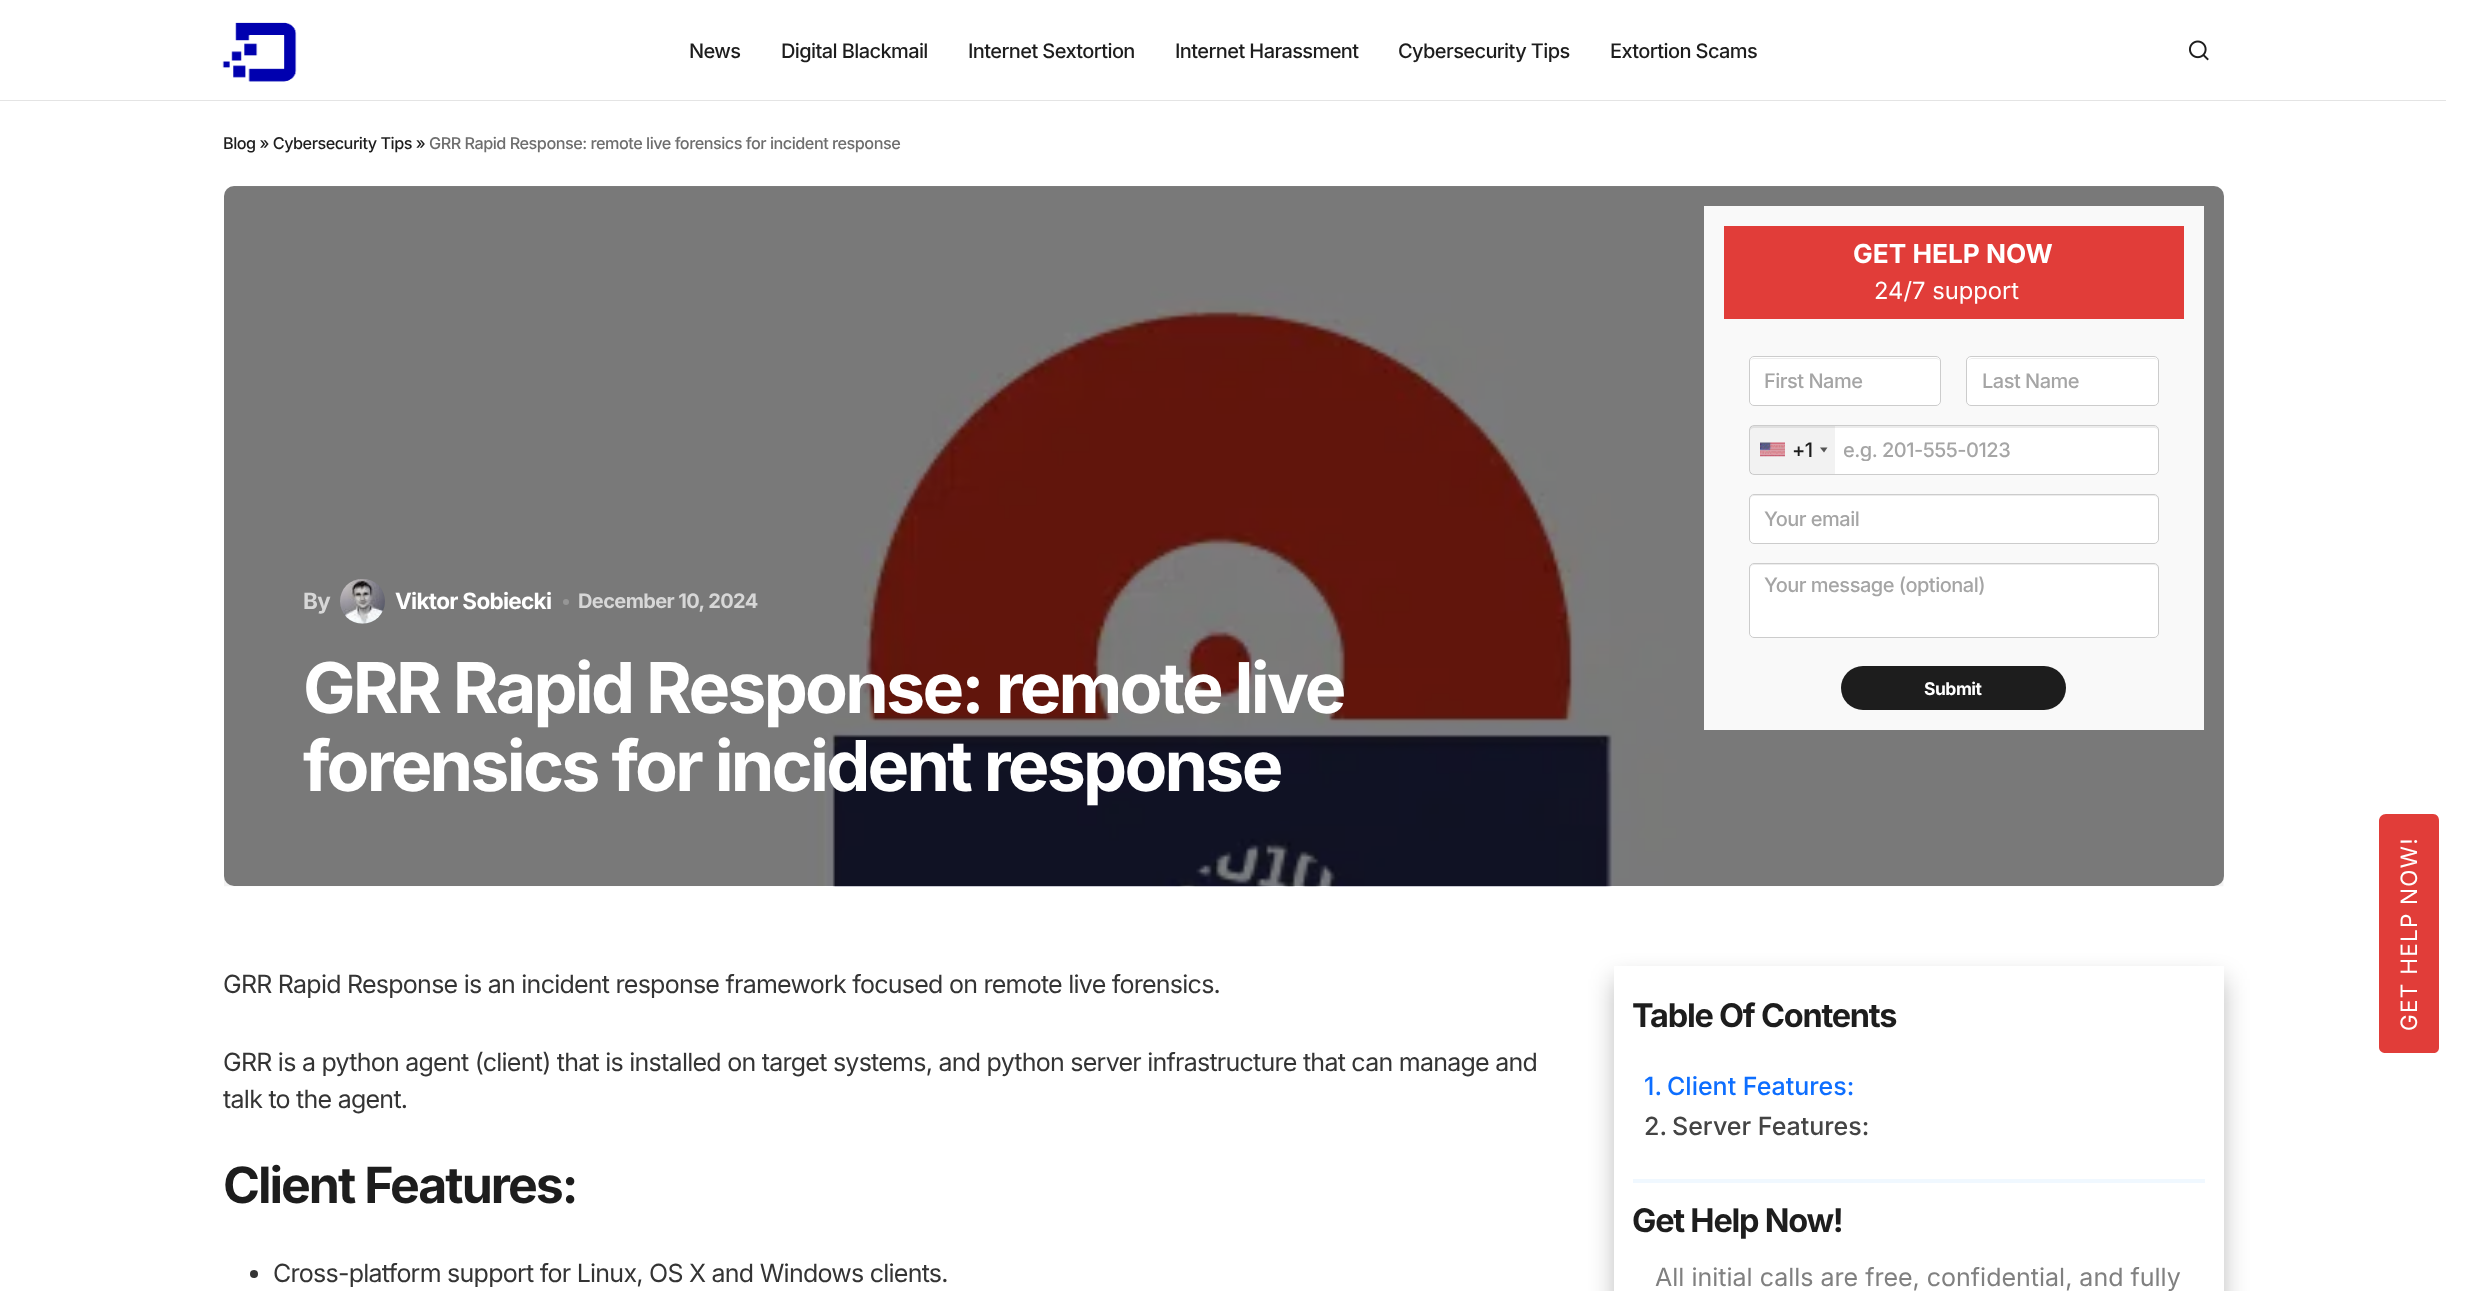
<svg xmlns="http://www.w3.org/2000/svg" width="2465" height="1291">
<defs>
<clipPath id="clip1"><rect x="1844" y="436" width="299" height="25"/></clipPath>
<clipPath id="clip2"><path d="M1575 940h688v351h-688zm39 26h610v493h-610z" clip-rule="evenodd"/></clipPath>
</defs>
<rect width="100%" height="100%" fill="#fff"/>
<image x="222" y="22" width="75" height="60" href="media/1.png"/>
<text x="689" y="58" style="font-family:Inter;font-size:20px;font-weight:500;letter-spacing:-0.6px;fill:#1d1d1d">News</text>
<text x="781" y="58" style="font-family:Inter;font-size:20px;font-weight:500;letter-spacing:-0.6px;fill:#1d1d1d">Digital Blackmail</text>
<text x="968" y="58" style="font-family:Inter;font-size:20px;font-weight:500;letter-spacing:-0.6px;fill:#1d1d1d">Internet Sextortion</text>
<text x="1175" y="58" style="font-family:Inter;font-size:20px;font-weight:500;letter-spacing:-0.6px;fill:#1d1d1d">Internet Harassment</text>
<text x="1398" y="58" style="font-family:Inter;font-size:20px;font-weight:500;letter-spacing:-0.6px;fill:#1d1d1d">Cybersecurity Tips</text>
<text x="1610" y="58" style="font-family:Inter;font-size:20px;font-weight:500;letter-spacing:-0.6px;fill:#1d1d1d">Extortion Scams</text>
<image x="2189" y="40" width="20" height="21" href="media/2.png"/>
<rect y="100" width="2446" height="1" fill="#e4e4e4"/>
<text x="223" y="149" style="font-family:Inter;font-size:16.25px;font-weight:500;letter-spacing:-0.5px;fill:#1d1d1d">Blog » Cybersecurity Tips »</text>
<text x="429" y="149" style="font-family:Inter;font-size:16.25px;font-weight:500;letter-spacing:-0.5px;fill:#6e6e6e">GRR Rapid Response: remote live forensics for incident response</text>
<image x="224" y="186" width="2000" height="701" href="media/3.png"/>
<rect x="224" y="186" width="2000" height="700" rx="10" fill="#00000080"/>
<text x="303" y="609" style="font-family:Inter;font-size:22.5px;font-weight:bold;letter-spacing:-0.7px;fill:#d7d7d7">By</text>
<image x="340" y="579" width="45" height="45" href="media/4.png"/>
<text x="395" y="609" style="font-family:Inter;font-size:22.5px;font-weight:bold;letter-spacing:-0.7px;fill:#fff">Viktor Sobiecki</text>
<circle cx="566" cy="602" r="3" fill="#969696"/>
<text x="578" y="608" style="font-family:Inter;font-size:20px;font-weight:bold;letter-spacing:-0.6px;fill:#d7d7d7">December 10, 2024</text>
<text x="303" y="713" style="font-family:Inter;font-size:70px;font-weight:bold;letter-spacing:-2.8px;fill:#fff">GRR Rapid Response: remote live</text>
<text x="303" y="791" style="font-family:Inter;font-size:70px;font-weight:bold;letter-spacing:-2.8px;fill:#fff">forensics for incident response</text>
<rect x="1704" y="206" width="500" height="524" fill="#f9f9f9"/>
<rect x="1724" y="226" width="460" height="93" fill="#e13d39"/>
<text x="1853" y="263" style="font-family:Inter;font-size:26.25px;font-weight:bold;fill:#fff">GET HELP NOW</text>
<text x="1874" y="299" style="font-family:Inter;font-size:23.75px;fill:#fff">24/7 support</text>
<rect x="1749" y="356" width="192" height="50" rx="5" fill="#fff"/>
<path d="M1754 359h182c2 0 4 1 4 3c0-2-2-4-4-4h-182c-2 0-4 2-4 4c0-2 2-3 4-3z" fill="#ececec"/>
<rect x="1749.5" y="356.5" width="191" height="49" rx="4.5" fill="none" stroke="#ccc"/>
<text x="1764" y="388" style="font-family:Inter;font-size:20px;font-weight:500;letter-spacing:-0.5px;fill:#a5a5a5">First Name</text>
<rect x="1966" y="356" width="193" height="50" rx="5" fill="#fff"/>
<path d="M1971 359h183c2 0 4 1 4 3c0-2-2-4-4-4h-182c-1 0-3 1-3 2z" fill="#ececec"/>
<rect x="1966.5" y="356.5" width="192" height="49" rx="4.5" fill="none" stroke="#ccc"/>
<text x="1982" y="388" style="font-family:Inter;font-size:20px;font-weight:500;letter-spacing:-0.5px;fill:#a5a5a5">Last Name</text>
<rect x="1749" y="425" width="410" height="50" rx="5" fill="#fff"/>
<path d="M1754 428h400c2 0 4 1 4 3v-1c0-2-2-4-4-4h-400c-2 0-4 2-4 4v1c0-2 2-3 4-3z" fill="#ececec"/>
<rect x="1749.5" y="425.5" width="409" height="49" rx="4.5" fill="none" stroke="#ccc"/>
<rect x="1750" y="426" width="85" height="48" fill="#0000000d"/>
<rect x="1760" y="443" width="25" height="13" fill="#888" filter="blur(0.5px)"/>
<image x="1760" y="442" width="25" height="15" href="media/5.png"/>
<text x="1792" y="457" style="font-family:Inter;font-size:20px;font-weight:500;letter-spacing:-0.5px;fill:#1d1d1d">+1</text>
<path d="M1820 447.5h7.5l-3.5 5z" fill="#555"/>
<g clip-path="url(#clip1)">
<text x="1843" y="457" style="font-family:Inter;font-size:20px;font-weight:500;letter-spacing:-0.5px;fill:#a5a5a5">e.g. 201-555-0123</text>
</g>
<rect x="1749" y="494" width="410" height="50" rx="5" fill="#fff"/>
<path d="M1754 496h400c2 0 4 2 4 4v-1c0-2-2-4-4-4h-400c-2 0-4 2-4 4v1c0-2 2-4 4-4z" fill="#ececec"/>
<rect x="1749.5" y="494.5" width="409" height="49" rx="4.5" fill="none" stroke="#ccc"/>
<text x="1764" y="526" style="font-family:Inter;font-size:20px;font-weight:500;letter-spacing:-0.5px;fill:#a5a5a5">Your email</text>
<rect x="1749" y="563" width="410" height="75" rx="5" fill="#fff"/>
<path d="M1754 565h400c2 0 4 2 4 4v-1c0-2-2-4-4-4h-400c-2 0-4 2-4 4v1c0-2 2-4 4-4z" fill="#ececec"/>
<rect x="1749.5" y="563.5" width="409" height="74" rx="4.5" fill="none" stroke="#ccc"/>
<text x="1764" y="592" style="font-family:Inter;font-size:20px;font-weight:500;letter-spacing:-0.5px;fill:#a5a5a5">Your message (optional)</text>
<rect x="1841" y="666" width="225" height="44" rx="22" fill="#1d1d1d"/>
<text x="1924" y="695" style="font-family:Inter;font-size:17.5px;font-weight:bold;letter-spacing:-0.5px;fill:#fff">Submit</text>
<text x="223" y="993" style="font-family:Inter;font-size:25px;letter-spacing:-0.75px;fill:#343434">GRR Rapid Response is an incident response framework focused on remote live forensics.</text>
<text x="223" y="1071" style="font-family:Inter;font-size:25px;letter-spacing:-0.75px;fill:#343434">GRR is a python agent (client) that is installed on target systems, and python server infrastructure that can manage and</text>
<text x="223" y="1108" style="font-family:Inter;font-size:25px;letter-spacing:-0.75px;fill:#343434">talk to the agent.</text>
<text x="223" y="1203" style="font-family:Inter;font-size:50px;font-weight:bold;letter-spacing:-2px;fill:#1d1d1d">Client Features:</text>
<circle cx="254" cy="1274" r="4" fill="#343434"/>
<text x="273" y="1282" style="font-family:Inter;font-size:25px;letter-spacing:-0.75px;fill:#343434">Cross-platform support for Linux, OS X and Windows clients.</text>
<g clip-path="url(#clip2)">
<rect x="1614" y="979" width="610" height="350" fill="#0a0a0a45" filter="blur(12.5px)"/>
</g>
<text x="1632" y="1027" style="font-family:Inter;font-size:32.5px;font-weight:bold;letter-spacing:-1.25px;fill:#1d1d1d">Table Of Contents</text>
<text x="1644" y="1095" style="font-family:Inter;font-size:25px;font-weight:500;fill:#0d6eff">1.</text>
<text x="1667" y="1095" style="font-family:Inter;font-size:25px;font-weight:500;fill:#0d6eff">Client Features:</text>
<text x="1644" y="1135" style="font-family:Inter;font-size:25px;font-weight:500;fill:#444">2.</text>
<text x="1672" y="1135" style="font-family:Inter;font-size:25px;font-weight:500;fill:#444">Server Features:</text>
<rect x="1633" y="1179" width="572" height="4" fill="#f0f8ff"/>
<text x="1632" y="1232" style="font-family:Inter;font-size:32.5px;font-weight:bold;letter-spacing:-1.25px;fill:#1d1d1d">Get Help Now!</text>
<text x="1655" y="1286" style="font-family:Inter;font-size:25px;fill:#808080">All initial calls are free, confidential, and fully</text>
<path d="M2379 1047v-226c0-4 3-7 7-7h47c4 0 6 3 6 7v226c0 4-2 6-6 6h-47c-4 0-7-2-7-6z" fill="#e13d39"/>
<text x="2417" y="1031" transform="rotate(-90 2417 1031)" style="font-family:Inter;font-size:22.5px;letter-spacing:1.25px;fill:#fff">GET HELP NOW!</text>
</svg>
